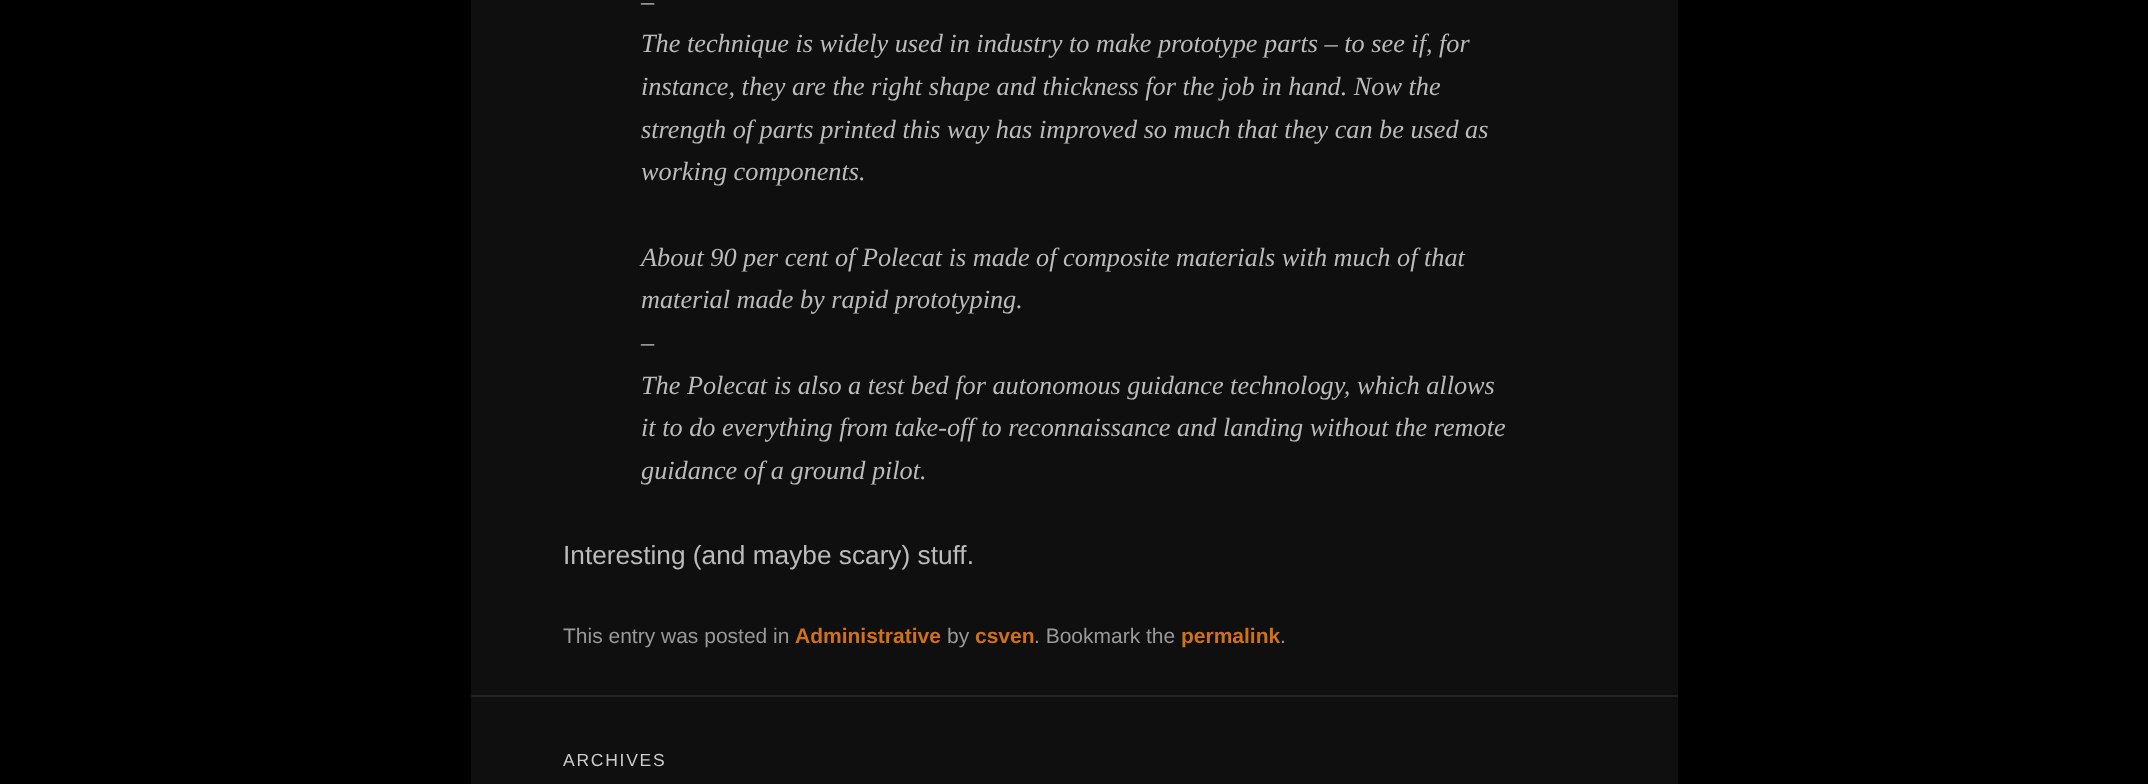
<svg xmlns="http://www.w3.org/2000/svg" width="2148" height="784">
<rect width="100%" height="100%" fill="#000"/>
<rect x="471" width="1207" height="784" fill="#0f0f0f"/>
<text x="641" y="10" style="font-family:Liberation Serif;font-size:26.25px;font-style:italic;fill:#bbb">–</text>
<text x="641" y="52" style="font-family:Liberation Serif;font-size:26.25px;font-style:italic;fill:#bbb">The technique is widely used in industry to make prototype parts – to see if, for</text>
<text x="641" y="95" style="font-family:Liberation Serif;font-size:26.25px;font-style:italic;fill:#bbb">instance, they are the right shape and thickness for the job in hand. Now the</text>
<text x="641" y="138" style="font-family:Liberation Serif;font-size:26.25px;font-style:italic;fill:#bbb">strength of parts printed this way has improved so much that they can be used as</text>
<text x="641" y="180" style="font-family:Liberation Serif;font-size:26.25px;font-style:italic;fill:#bbb">working components.</text>
<text x="641" y="266" style="font-family:Liberation Serif;font-size:26.25px;font-style:italic;fill:#bbb">About 90 per cent of Polecat is made of composite materials with much of that</text>
<text x="641" y="308" style="font-family:Liberation Serif;font-size:26.25px;font-style:italic;fill:#bbb">material made by rapid prototyping.</text>
<text x="641" y="351" style="font-family:Liberation Serif;font-size:26.25px;font-style:italic;fill:#bbb">–</text>
<text x="641" y="394" style="font-family:Liberation Serif;font-size:26.25px;font-style:italic;fill:#bbb">The Polecat is also a test bed for autonomous guidance technology, which allows</text>
<text x="641" y="436" style="font-family:Liberation Serif;font-size:26.25px;font-style:italic;fill:#bbb">it to do everything from take-off to reconnaissance and landing without the remote</text>
<text x="641" y="479" style="font-family:Liberation Serif;font-size:26.25px;font-style:italic;fill:#bbb">guidance of a ground pilot.</text>
<text x="563" y="564" style="font-family:Liberation Sans;font-size:26.25px;fill:#bbb">Interesting (and maybe scary) stuff.</text>
<text x="563" y="643" style="font-family:Liberation Sans;font-size:21px;fill:#999">This entry was posted in</text>
<text x="795" y="643" style="font-family:Liberation Sans;font-size:21px;font-weight:bold;fill:#d1701b">Administrative</text>
<text x="947" y="643" style="font-family:Liberation Sans;font-size:21px;fill:#999">by</text>
<text x="975" y="643" style="font-family:Liberation Sans;font-size:21px;font-weight:bold;fill:#d1701b">csven</text>
<text x="1034" y="643" style="font-family:Liberation Sans;font-size:21px;fill:#999">. Bookmark the</text>
<text x="1181" y="643" style="font-family:Liberation Sans;font-size:21px;font-weight:bold;fill:#d1701b">permalink</text>
<text x="1280" y="643" style="font-family:Liberation Sans;font-size:21px;fill:#999">.</text>
<rect x="471" y="695" width="1207" height="2" fill="#222"/>
<text x="563" y="766" style="font-family:Liberation Sans;font-size:17.5px;letter-spacing:1.75px;fill:#ccc">ARCHIVES</text>
</svg>
